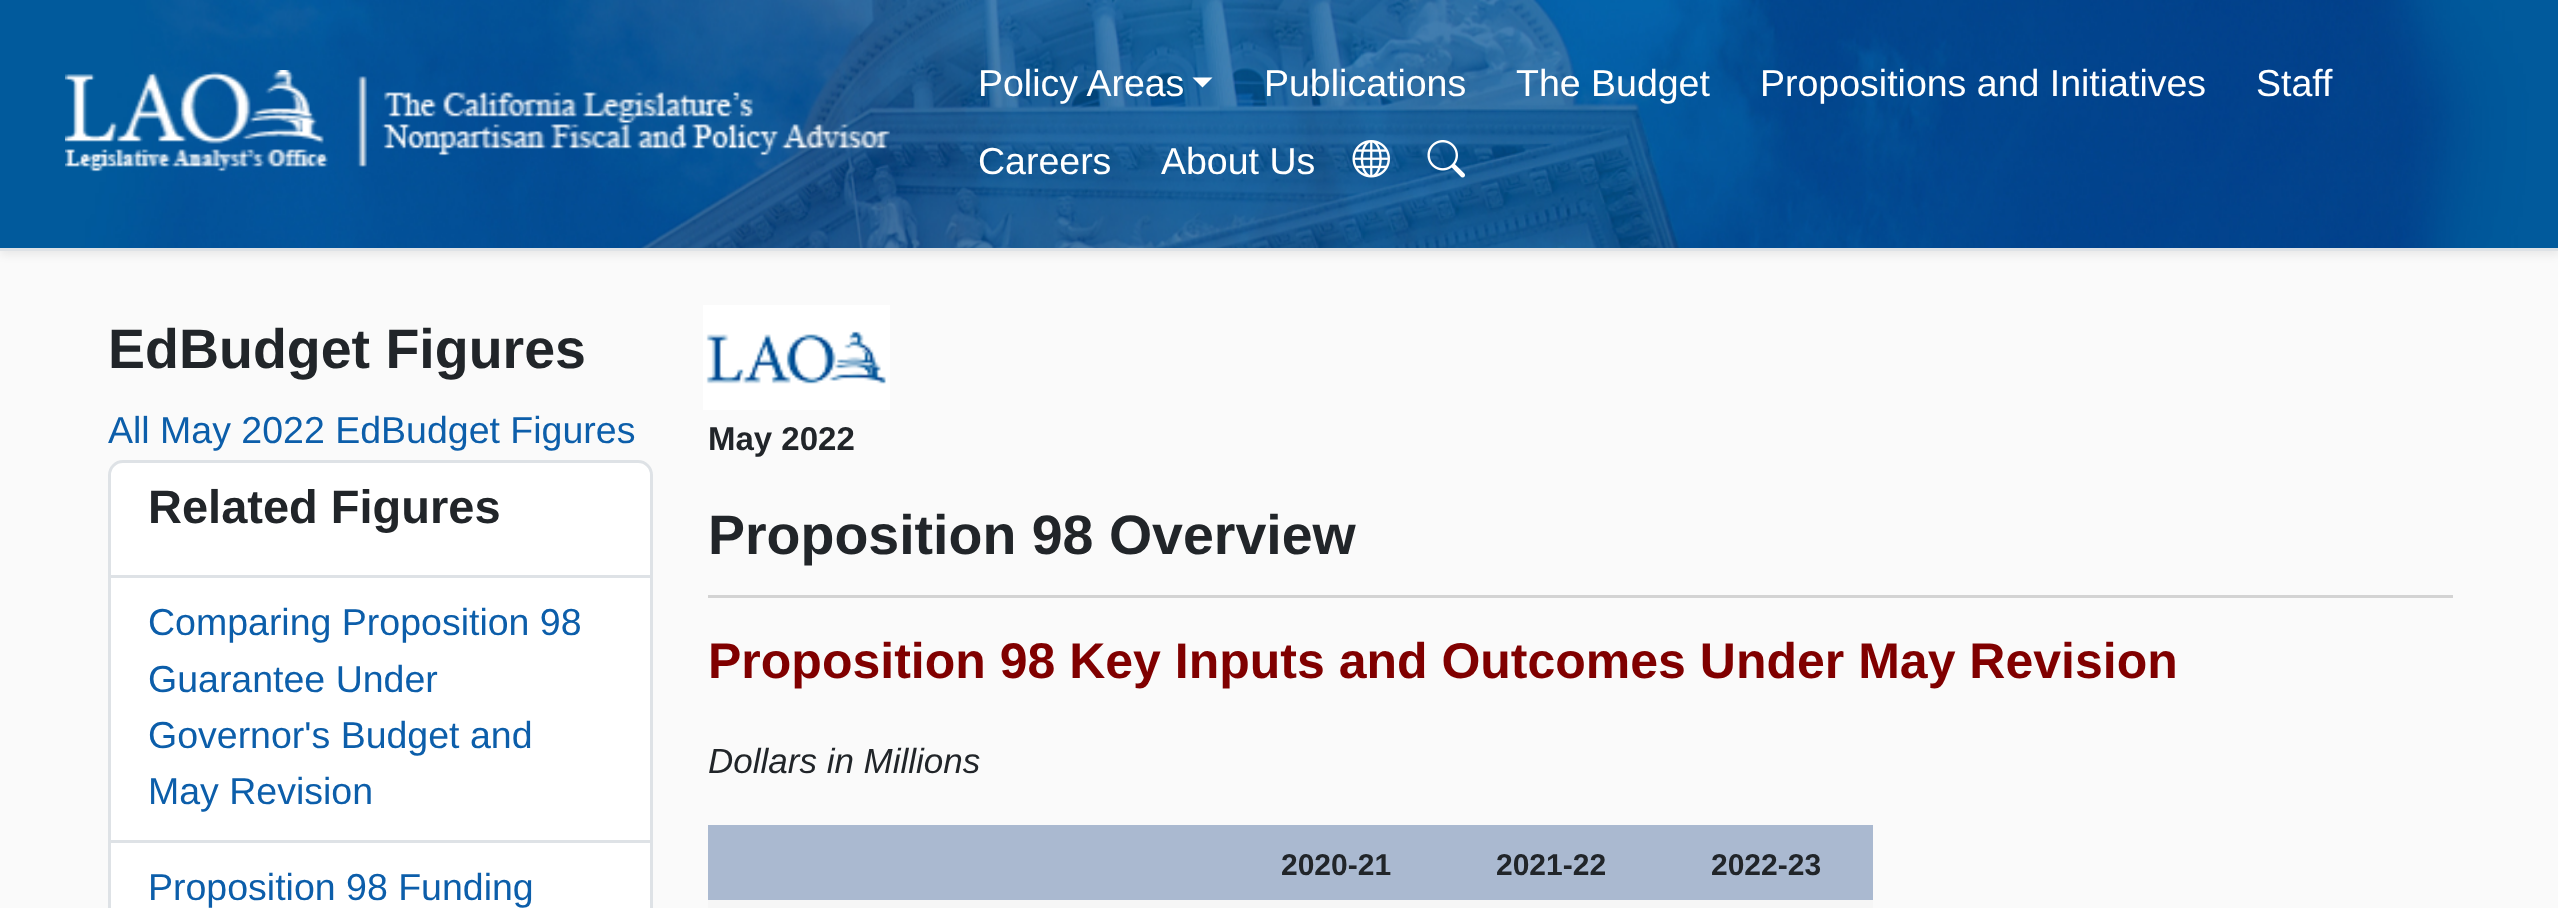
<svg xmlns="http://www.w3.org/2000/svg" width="2558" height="908">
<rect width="100%" height="100%" fill="#fafafa"/>
<rect y="5" width="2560" height="250" fill="#00000012" filter="blur(4.5px)"/>
<image x="0" y="0" width="2558" height="248" href="media/1.png"/>
<rect y="248" width="2558" height="3" fill="#dee2e6"/>
<image x="65" y="70" width="825" height="102" href="media/2.png"/>
<text x="978" y="96" style="font-family:Liberation Sans;font-size:37.5px;fill:#fff">Policy Areas</text>
<path d="M1192.5 77.5h20l-10 10z" fill="#fff"/>
<text x="1264" y="96" style="font-family:Liberation Sans;font-size:37.5px;fill:#fff">Publications</text>
<text x="1516" y="96" style="font-family:Liberation Sans;font-size:37.5px;fill:#fff">The Budget</text>
<text x="1760" y="96" style="font-family:Liberation Sans;font-size:37.5px;fill:#fff">Propositions and Initiatives</text>
<text x="2256" y="96" style="font-family:Liberation Sans;font-size:37.5px;fill:#fff">Staff</text>
<text x="978" y="174" style="font-family:Liberation Sans;font-size:37.5px;fill:#fff">Careers</text>
<text x="1161" y="174" style="font-family:Liberation Sans;font-size:37.5px;fill:#fff">About Us</text>
<image x="1352" y="140" width="38" height="38" href="media/3.png"/>
<image x="1427" y="140" width="38" height="38" href="media/4.png"/>
<text x="108" y="368" style="font-family:Liberation Sans;font-size:55.5px;font-weight:bold;fill:#212529">EdBudget Figures</text>
<text x="108" y="443" style="font-family:Liberation Sans;font-size:37.5px;fill:#0c5eaa">All May 2022 EdBudget Figures</text>
<path d="M123 461.5h515c7.5 0 13.5 6 13.5 13.5v101.5h-542v-101.5c0-7.5 6-13.5 13.5-13.5z" fill="#fff" stroke="#dee2e6" stroke-width="3"/>
<text x="148" y="523" style="font-family:Liberation Sans;font-size:47px;font-weight:bold;fill:#212529">Related Figures</text>
<rect x="111" y="578" width="539" height="262" fill="#fff"/>
<rect x="650" y="578" width="3" height="330" fill="#dee2e6"/>
<rect x="108" y="840" width="545" height="3" fill="#dee2e6"/>
<rect x="108" y="578" width="3" height="330" fill="#dee2e6"/>
<text x="148" y="635" style="font-family:Liberation Sans;font-size:37.5px;fill:#0c5eaa">Comparing Proposition 98</text>
<text x="148" y="692" style="font-family:Liberation Sans;font-size:37.5px;fill:#0c5eaa">Guarantee Under</text>
<text x="148" y="748" style="font-family:Liberation Sans;font-size:37.5px;fill:#0c5eaa">Governor's Budget and</text>
<text x="148" y="804" style="font-family:Liberation Sans;font-size:37.5px;fill:#0c5eaa">May Revision</text>
<rect x="111" y="843" width="539" height="65" fill="#fff"/>
<text x="148" y="900" style="font-family:Liberation Sans;font-size:37.5px;fill:#0c5eaa">Proposition 98 Funding</text>
<image x="703" y="305" width="187" height="105" href="media/5.png"/>
<text x="708" y="450" style="font-family:Liberation Sans;font-size:33px;font-weight:bold;fill:#212529">May 2022</text>
<text x="708" y="554" style="font-family:Liberation Sans;font-size:55.5px;font-weight:bold;fill:#212529">Proposition 98 Overview</text>
<rect x="708" y="595" width="1745" height="3" fill="#d3d3d3"/>
<text x="708" y="678" style="font-family:Liberation Sans;font-size:50px;font-weight:bold;fill:#800000">Proposition 98 Key Inputs and Outcomes Under May Revision</text>
<text x="708" y="773" style="font-family:Liberation Sans;font-size:35px;font-style:italic;fill:#212529">Dollars in Millions</text>
<rect x="708" y="900" width="1165" height="8" fill="#f6f6f6"/>
<rect x="708" y="825" width="1165" height="75" fill="#aab9d0"/>
<text x="1281" y="875" style="font-family:Liberation Sans;font-size:30px;font-weight:bold;fill:#212529">2020-21</text>
<text x="1496" y="875" style="font-family:Liberation Sans;font-size:30px;font-weight:bold;fill:#212529">2021-22</text>
<text x="1711" y="875" style="font-family:Liberation Sans;font-size:30px;font-weight:bold;fill:#212529">2022-23</text>
</svg>
